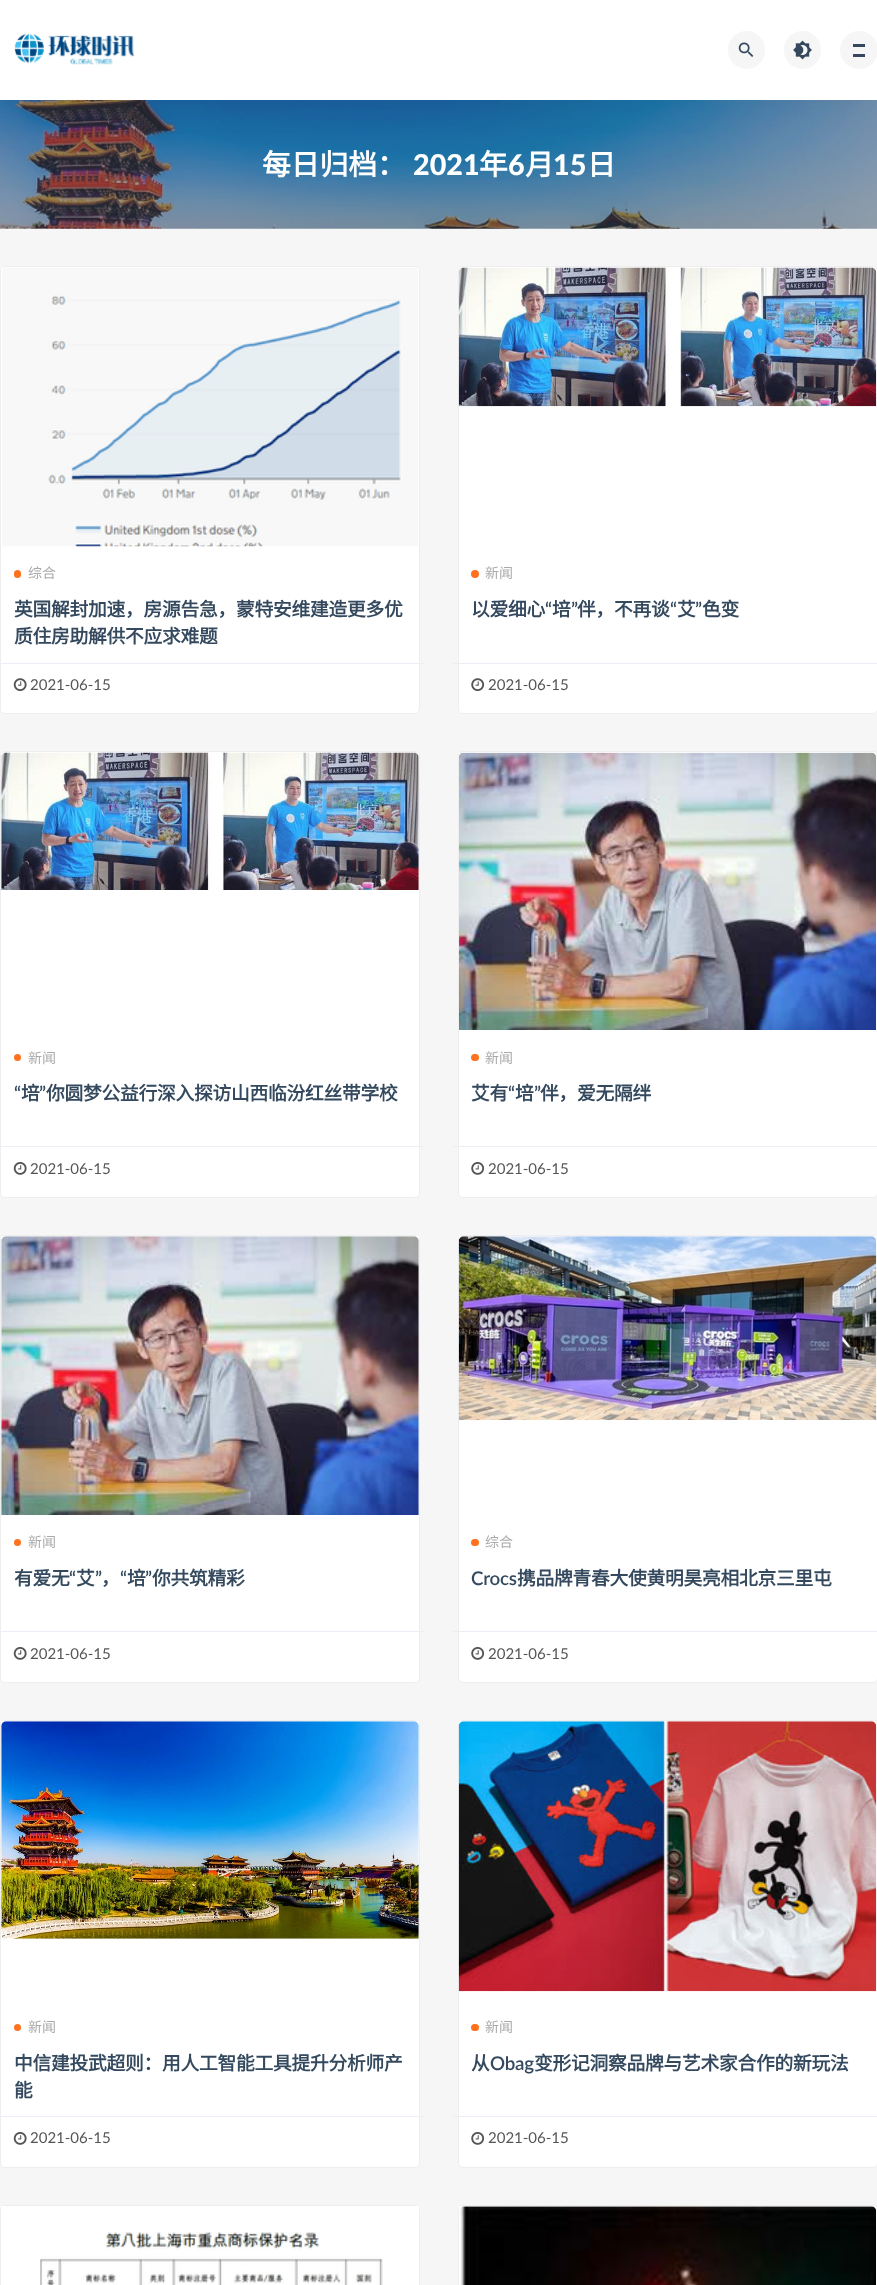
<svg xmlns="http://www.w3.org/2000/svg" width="877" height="2285">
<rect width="100%" height="100%" fill="#f6f6f6"/>
<image x="0" y="100" width="877" height="129" href="media/4.png"/>
<rect width="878" height="100" fill="#00000012" filter="blur(19px)"/>
<rect width="877" height="100" fill="#fff"/>
<image x="14" y="33" width="121" height="32" href="media/1.png"/>
<rect x="728" y="31" width="37" height="38" rx="18.5" fill="#f6f6f6"/>
<image x="738" y="42" width="16" height="15" href="media/2.png"/>
<rect x="784" y="31" width="37" height="38" rx="18.5" fill="#f6f6f6"/>
<image x="793" y="40" width="19" height="20" href="media/3.png"/>
<circle cx="859" cy="50" r="19" fill="#f6f6f6"/>
<rect x="853" y="44" width="12" height="3" fill="#34495e"/>
<rect x="853" y="54" width="12" height="3" fill="#34495e"/>
<text x="262" y="175" style="font-family:Noto Sans CJK SC;font-size:28.75px;font-weight:bold;fill:#fff">每日归档：</text>
<text x="413" y="175" style="font-family:Lato;font-size:28.75px;font-weight:900;fill:#fff">2021</text>
<text x="479" y="175" style="font-family:Noto Sans CJK SC;font-size:28.75px;font-weight:bold;fill:#fff">年</text>
<text x="508" y="175" style="font-family:Lato;font-size:28.75px;font-weight:900;fill:#fff">6</text>
<text x="525" y="175" style="font-family:Noto Sans CJK SC;font-size:28.75px;font-weight:bold;fill:#fff">月</text>
<text x="553" y="175" style="font-family:Lato;font-size:28.75px;font-weight:900;fill:#fff">15</text>
<text x="587" y="175" style="font-family:Noto Sans CJK SC;font-size:28.75px;font-weight:bold;fill:#fff">日</text>
<rect x="0.5" y="266.5" width="419" height="447" rx="4.5" fill="#fff" stroke="#eee"/>
<rect x="1" y="268" width="418" height="2" fill="#fff"/>
<image x="2" y="268" width="416" height="279" href="media/5.png"/>
<rect x="14" y="570" width="7" height="8" rx="3.5" fill="#fd721f"/>
<text x="28" y="578" style="font-family:Noto Sans CJK SC;font-size:14px;fill:#aaa">综合</text>
<text x="14" y="616" style="font-family:Noto Sans CJK SC;font-size:18.75px;font-weight:bold;letter-spacing:-0.25px;fill:#34495e">英国解封加速，房源告急，蒙特安维建造更多优</text>
<text x="14" y="643" style="font-family:Noto Sans CJK SC;font-size:18.75px;font-weight:bold;letter-spacing:-0.25px;fill:#34495e">质住房助解供不应求难题</text>
<rect y="663" width="425" height="1" fill="#ebeef5"/>
<image x="13" y="678" width="14" height="14" href="media/6.png"/>
<text x="30" y="690" style="font-family:Lato;font-size:15px;fill:#555">2021-06-15</text>
<rect x="458.5" y="266.5" width="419" height="447" rx="4.5" fill="#fff" stroke="#eee"/>
<rect x="459" y="268" width="1" height="2" fill="#fff"/>
<image x="458" y="267" width="419" height="140" href="media/7.png"/>
<circle cx="475" cy="574" r="4" fill="#fd721f"/>
<text x="485" y="578" style="font-family:Noto Sans CJK SC;font-size:14px;fill:#aaa">新闻</text>
<text x="471" y="616" style="font-family:Noto Sans CJK SC;font-size:18.75px;font-weight:bold;letter-spacing:-0.25px;fill:#34495e">以爱细心</text>
<text x="545" y="616" style="font-family:Lato;font-size:18.75px;font-weight:600;letter-spacing:-0.25px;fill:#34495e">“</text>
<text x="552" y="616" style="font-family:Noto Sans CJK SC;font-size:18.75px;font-weight:bold;letter-spacing:-0.25px;fill:#34495e">培</text>
<text x="571" y="616" style="font-family:Lato;font-size:18.75px;font-weight:600;letter-spacing:-0.25px;fill:#34495e">”</text>
<text x="577" y="616" style="font-family:Noto Sans CJK SC;font-size:18.75px;font-weight:bold;letter-spacing:-0.25px;fill:#34495e">伴，不再谈</text>
<text x="670" y="616" style="font-family:Lato;font-size:18.75px;font-weight:600;letter-spacing:-0.25px;fill:#34495e">“</text>
<text x="677" y="616" style="font-family:Noto Sans CJK SC;font-size:18.75px;font-weight:bold;letter-spacing:-0.25px;fill:#34495e">艾</text>
<text x="695" y="616" style="font-family:Lato;font-size:18.75px;font-weight:600;letter-spacing:-0.25px;fill:#34495e">”</text>
<text x="702" y="616" style="font-family:Noto Sans CJK SC;font-size:18.75px;font-weight:bold;letter-spacing:-0.25px;fill:#34495e">色变</text>
<rect x="453" y="663" width="424" height="1" fill="#ebeef5"/>
<image x="471" y="678" width="14" height="14" href="media/8.png"/>
<text x="488" y="690" style="font-family:Lato;font-size:15px;fill:#555">2021-06-15</text>
<rect x="0.5" y="751.5" width="419" height="446" rx="4.5" fill="#fff" stroke="#eee"/>
<rect x="1" y="753" width="418" height="2" fill="#fff"/>
<image x="1" y="752" width="418" height="138" href="media/9.png"/>
<circle cx="17.5" cy="1057.5" r="3.5" fill="#fd721f"/>
<text x="28" y="1063" style="font-family:Noto Sans CJK SC;font-size:14px;fill:#aaa">新闻</text>
<text x="14" y="1100" style="font-family:Lato;font-size:18.75px;font-weight:600;letter-spacing:-0.25px;fill:#34495e">“</text>
<text x="21" y="1100" style="font-family:Noto Sans CJK SC;font-size:18.75px;font-weight:bold;letter-spacing:-0.25px;fill:#34495e">培</text>
<text x="39" y="1100" style="font-family:Lato;font-size:18.75px;font-weight:600;letter-spacing:-0.25px;fill:#34495e">”</text>
<text x="46" y="1100" style="font-family:Noto Sans CJK SC;font-size:18.75px;font-weight:bold;letter-spacing:-0.25px;fill:#34495e">你圆梦公益行深入探访山西临汾红丝带学校</text>
<rect y="1146" width="425" height="1" fill="#ebeef5"/>
<image x="13" y="1162" width="14" height="13" href="media/10.png"/>
<text x="30" y="1174" style="font-family:Lato;font-size:15px;fill:#555">2021-06-15</text>
<rect x="458.5" y="751.5" width="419" height="446" rx="4.5" fill="#fff" stroke="#eee"/>
<rect x="459" y="753" width="1" height="2" fill="#fff"/>
<image x="459" y="752" width="417" height="278" href="media/11.png"/>
<rect x="471" y="1054" width="8" height="7" rx="3.5" fill="#fd721f"/>
<text x="485" y="1063" style="font-family:Noto Sans CJK SC;font-size:14px;fill:#aaa">新闻</text>
<text x="471" y="1100" style="font-family:Noto Sans CJK SC;font-size:18.75px;font-weight:bold;letter-spacing:-0.25px;fill:#34495e">艾有</text>
<text x="508" y="1100" style="font-family:Lato;font-size:18.75px;font-weight:600;letter-spacing:-0.25px;fill:#34495e">“</text>
<text x="515" y="1100" style="font-family:Noto Sans CJK SC;font-size:18.75px;font-weight:bold;letter-spacing:-0.25px;fill:#34495e">培</text>
<text x="534" y="1100" style="font-family:Lato;font-size:18.75px;font-weight:600;letter-spacing:-0.25px;fill:#34495e">”</text>
<text x="540" y="1100" style="font-family:Noto Sans CJK SC;font-size:18.75px;font-weight:bold;letter-spacing:-0.25px;fill:#34495e">伴，爱无隔绊</text>
<rect x="453" y="1146" width="424" height="1" fill="#ebeef5"/>
<image x="471" y="1162" width="14" height="13" href="media/12.png"/>
<text x="488" y="1174" style="font-family:Lato;font-size:15px;fill:#555">2021-06-15</text>
<rect x="0.5" y="1235.5" width="419" height="447" rx="4.5" fill="#fff" stroke="#eee"/>
<rect x="1" y="1236" width="418" height="3" fill="#fff"/>
<image x="1" y="1236" width="418" height="279" href="media/13.png"/>
<circle cx="17.5" cy="1542.5" r="3.5" fill="#fd721f"/>
<text x="28" y="1547" style="font-family:Noto Sans CJK SC;font-size:14px;fill:#aaa">新闻</text>
<text x="14" y="1585" style="font-family:Noto Sans CJK SC;font-size:18.75px;font-weight:bold;letter-spacing:-0.25px;fill:#34495e">有爱无</text>
<text x="69" y="1585" style="font-family:Lato;font-size:18.75px;font-weight:600;letter-spacing:-0.25px;fill:#34495e">“</text>
<text x="76" y="1585" style="font-family:Noto Sans CJK SC;font-size:18.75px;font-weight:bold;letter-spacing:-0.25px;fill:#34495e">艾</text>
<text x="95" y="1585" style="font-family:Lato;font-size:18.75px;font-weight:600;letter-spacing:-0.25px;fill:#34495e">”</text>
<text x="120" y="1585" style="font-family:Lato;font-size:18.75px;font-weight:600;letter-spacing:-0.25px;fill:#34495e">“</text>
<text x="127" y="1585" style="font-family:Noto Sans CJK SC;font-size:18.75px;font-weight:bold;letter-spacing:-0.25px;fill:#34495e">培</text>
<text x="145" y="1585" style="font-family:Lato;font-size:18.75px;font-weight:600;letter-spacing:-0.25px;fill:#34495e">”</text>
<text x="152" y="1585" style="font-family:Noto Sans CJK SC;font-size:18.75px;font-weight:bold;letter-spacing:-0.25px;fill:#34495e">你共筑精彩</text>
<text x="101" y="1585" style="font-family:Noto Sans CJK SC;font-size:18.75px;font-weight:bold;letter-spacing:-0.25px;fill:#34495e">，</text>
<rect y="1631" width="425" height="1" fill="#ebeef5"/>
<image x="13" y="1647" width="14" height="13" href="media/10.png"/>
<text x="30" y="1659" style="font-family:Lato;font-size:15px;fill:#555">2021-06-15</text>
<rect x="458.5" y="1235.5" width="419" height="447" rx="4.5" fill="#fff" stroke="#eee"/>
<rect x="459" y="1236" width="417" height="3" fill="#fff"/>
<image x="458" y="1236" width="419" height="184" href="media/14.png"/>
<rect x="471" y="1539" width="8" height="7" rx="3.5" fill="#fd721f"/>
<text x="485" y="1547" style="font-family:Noto Sans CJK SC;font-size:14px;fill:#aaa">综合</text>
<text x="471" y="1585" style="font-family:Lato;font-size:18.75px;font-weight:600;letter-spacing:-0.25px;fill:#34495e">Crocs</text>
<text x="517" y="1585" style="font-family:Noto Sans CJK SC;font-size:18.75px;font-weight:bold;letter-spacing:-0.25px;fill:#34495e">携品牌青春大使黄明昊亮相北京三里屯</text>
<rect x="453" y="1631" width="424" height="1" fill="#ebeef5"/>
<image x="471" y="1647" width="14" height="13" href="media/12.png"/>
<text x="488" y="1659" style="font-family:Lato;font-size:15px;fill:#555">2021-06-15</text>
<rect x="0.5" y="1720.5" width="419" height="447" rx="4.5" fill="#fff" stroke="#eee"/>
<rect x="1" y="1721" width="418" height="3" fill="#fff"/>
<image x="1" y="1721" width="418" height="218" href="media/15.png"/>
<circle cx="17.5" cy="2027.5" r="3.5" fill="#fd721f"/>
<text x="28" y="2032" style="font-family:Noto Sans CJK SC;font-size:14px;fill:#aaa">新闻</text>
<text x="14" y="2070" style="font-family:Noto Sans CJK SC;font-size:18.75px;font-weight:bold;letter-spacing:-0.25px;fill:#34495e">中信建投武超则：用人工智能工具提升分析师产</text>
<text x="14" y="2097" style="font-family:Noto Sans CJK SC;font-size:18.75px;font-weight:bold;letter-spacing:-0.25px;fill:#34495e">能</text>
<rect y="2116" width="425" height="1" fill="#ebeef5"/>
<image x="13" y="2132" width="14" height="13" href="media/10.png"/>
<text x="30" y="2143" style="font-family:Lato;font-size:15px;fill:#555">2021-06-15</text>
<rect x="458.5" y="1720.5" width="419" height="447" rx="4.5" fill="#fff" stroke="#eee"/>
<rect x="459" y="1721" width="417" height="3" fill="#fff"/>
<image x="458" y="1721" width="419" height="271" href="media/16.png"/>
<rect x="471" y="2024" width="8" height="7" rx="3.5" fill="#fd721f"/>
<text x="485" y="2032" style="font-family:Noto Sans CJK SC;font-size:14px;fill:#aaa">新闻</text>
<text x="471" y="2070" style="font-family:Noto Sans CJK SC;font-size:18.75px;font-weight:bold;letter-spacing:-0.25px;fill:#34495e">从</text>
<text x="490" y="2070" style="font-family:Lato;font-size:18.75px;font-weight:600;letter-spacing:-0.25px;fill:#34495e">Obag</text>
<text x="534" y="2070" style="font-family:Noto Sans CJK SC;font-size:18.75px;font-weight:bold;letter-spacing:-0.25px;fill:#34495e">变形记洞察品牌与艺术家合作的新玩法</text>
<rect x="453" y="2116" width="424" height="1" fill="#ebeef5"/>
<image x="471" y="2132" width="14" height="13" href="media/12.png"/>
<text x="488" y="2143" style="font-family:Lato;font-size:15px;fill:#555">2021-06-15</text>
<rect x="0.5" y="2205.5" width="419" height="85" rx="4.5" fill="none" stroke="#eee"/>
<rect x="1" y="2206" width="418" height="79" fill="#fff"/>
<image x="40" y="2232" width="343" height="53" href="media/17.png"/>
<rect x="458.5" y="2205.5" width="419" height="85" rx="4.5" fill="#fff" stroke="#eee"/>
<rect x="459" y="2206" width="417" height="3" fill="#fff"/>
<image x="460" y="2206" width="416" height="79" href="media/18.png"/>
</svg>
